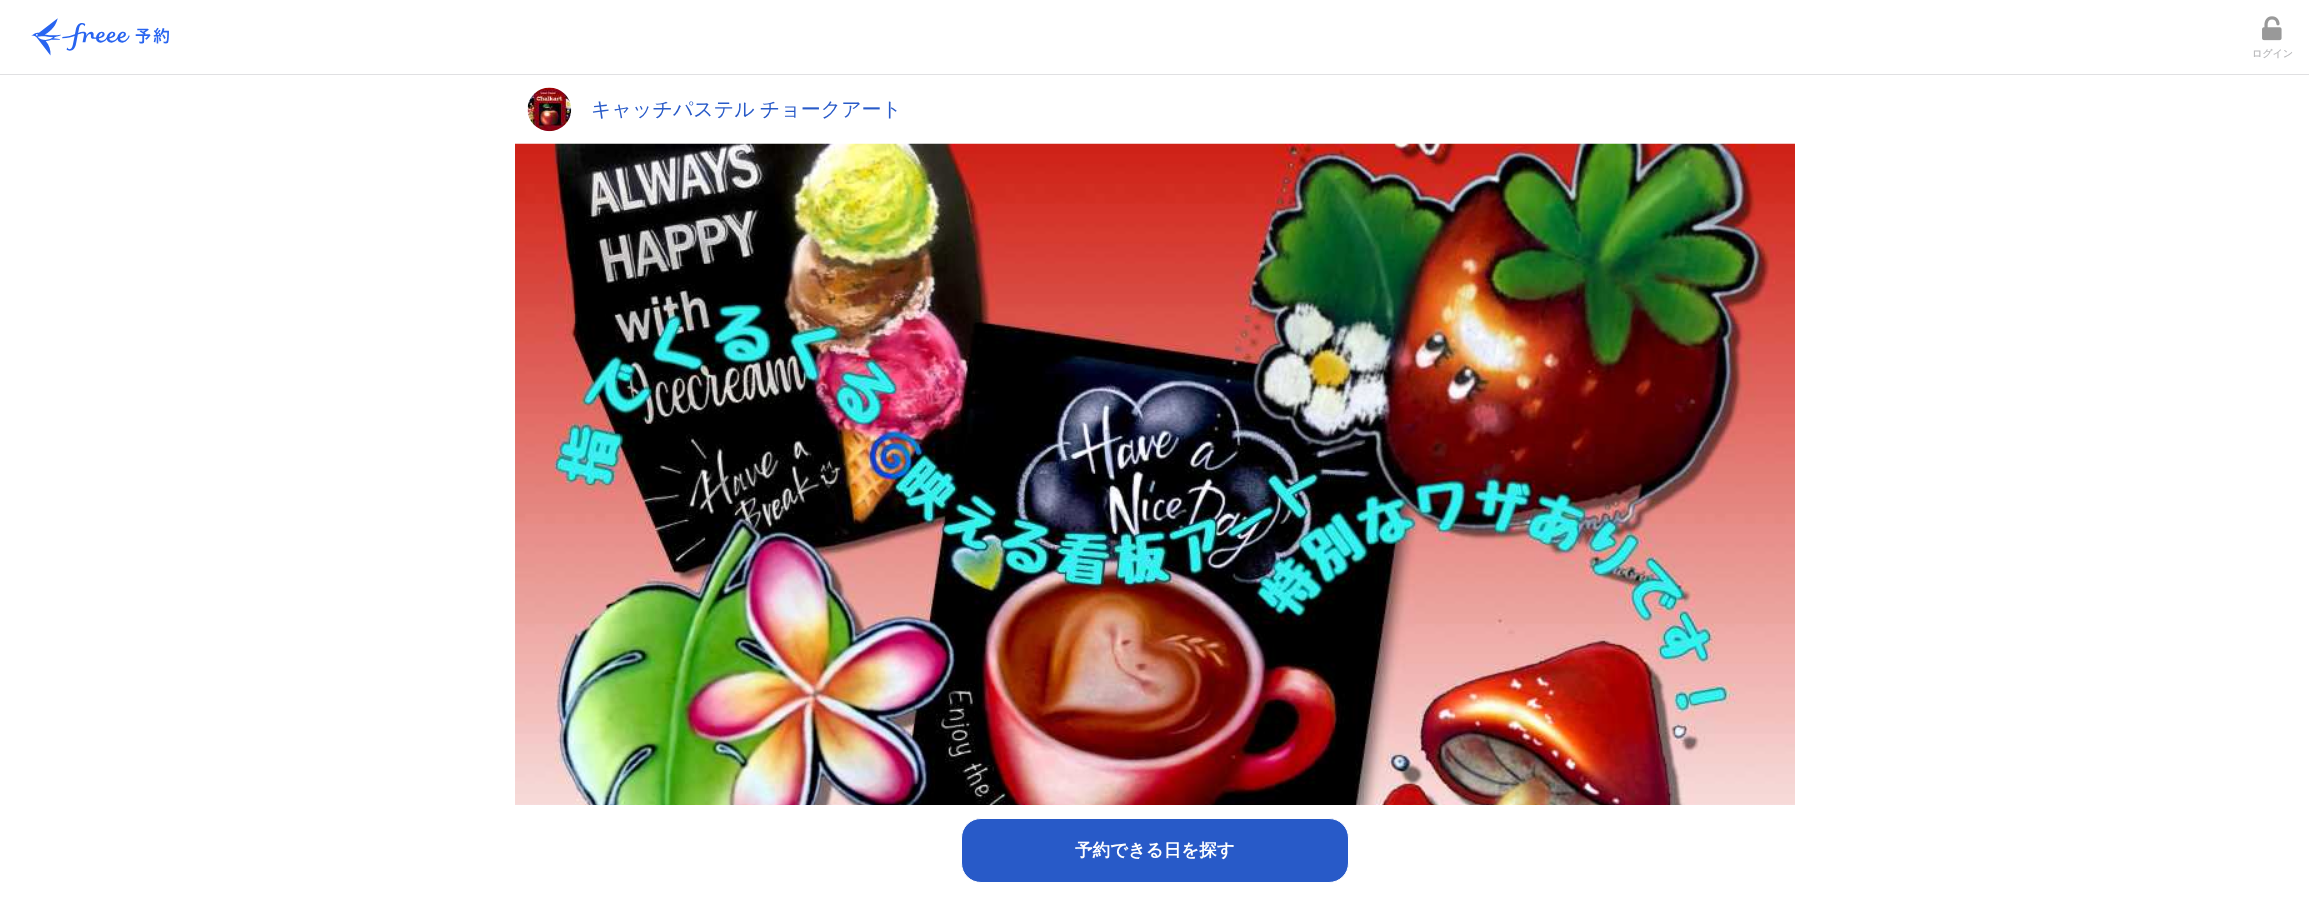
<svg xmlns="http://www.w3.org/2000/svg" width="2309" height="907">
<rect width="100%" height="100%" fill="#fff"/>
<rect y="74" width="2309" height="1" fill="#e0e0e2"/>
<image x="31" y="18" width="138" height="38" href="media/1.png"/>
<image x="2262" y="16" width="20" height="25" href="media/2.png"/>
<text x="2252" y="57" style="font-family:WenQuanYi Zen Hei;font-size:10px;font-weight:bold;fill:#bbbbbd">ログイン</text>
<image x="527" y="87" width="45" height="45" href="media/3.png"/>
<text x="591" y="116" word-spacing="-1" style="font-family:WenQuanYi Zen Hei;font-size:20px;font-weight:500;fill:#285ac8">キャッチパステル チョークアート</text>
<image x="515" y="143" width="1280" height="662" href="media/4.png"/>
<rect x="961.5" y="818.5" width="387" height="64" rx="19.5" fill="#285ac8" stroke="#fff"/>
<text x="1075" y="856" style="font-family:WenQuanYi Zen Hei;font-size:17.5px;font-weight:bold;fill:#fff">予約できる日を探す</text>
</svg>
